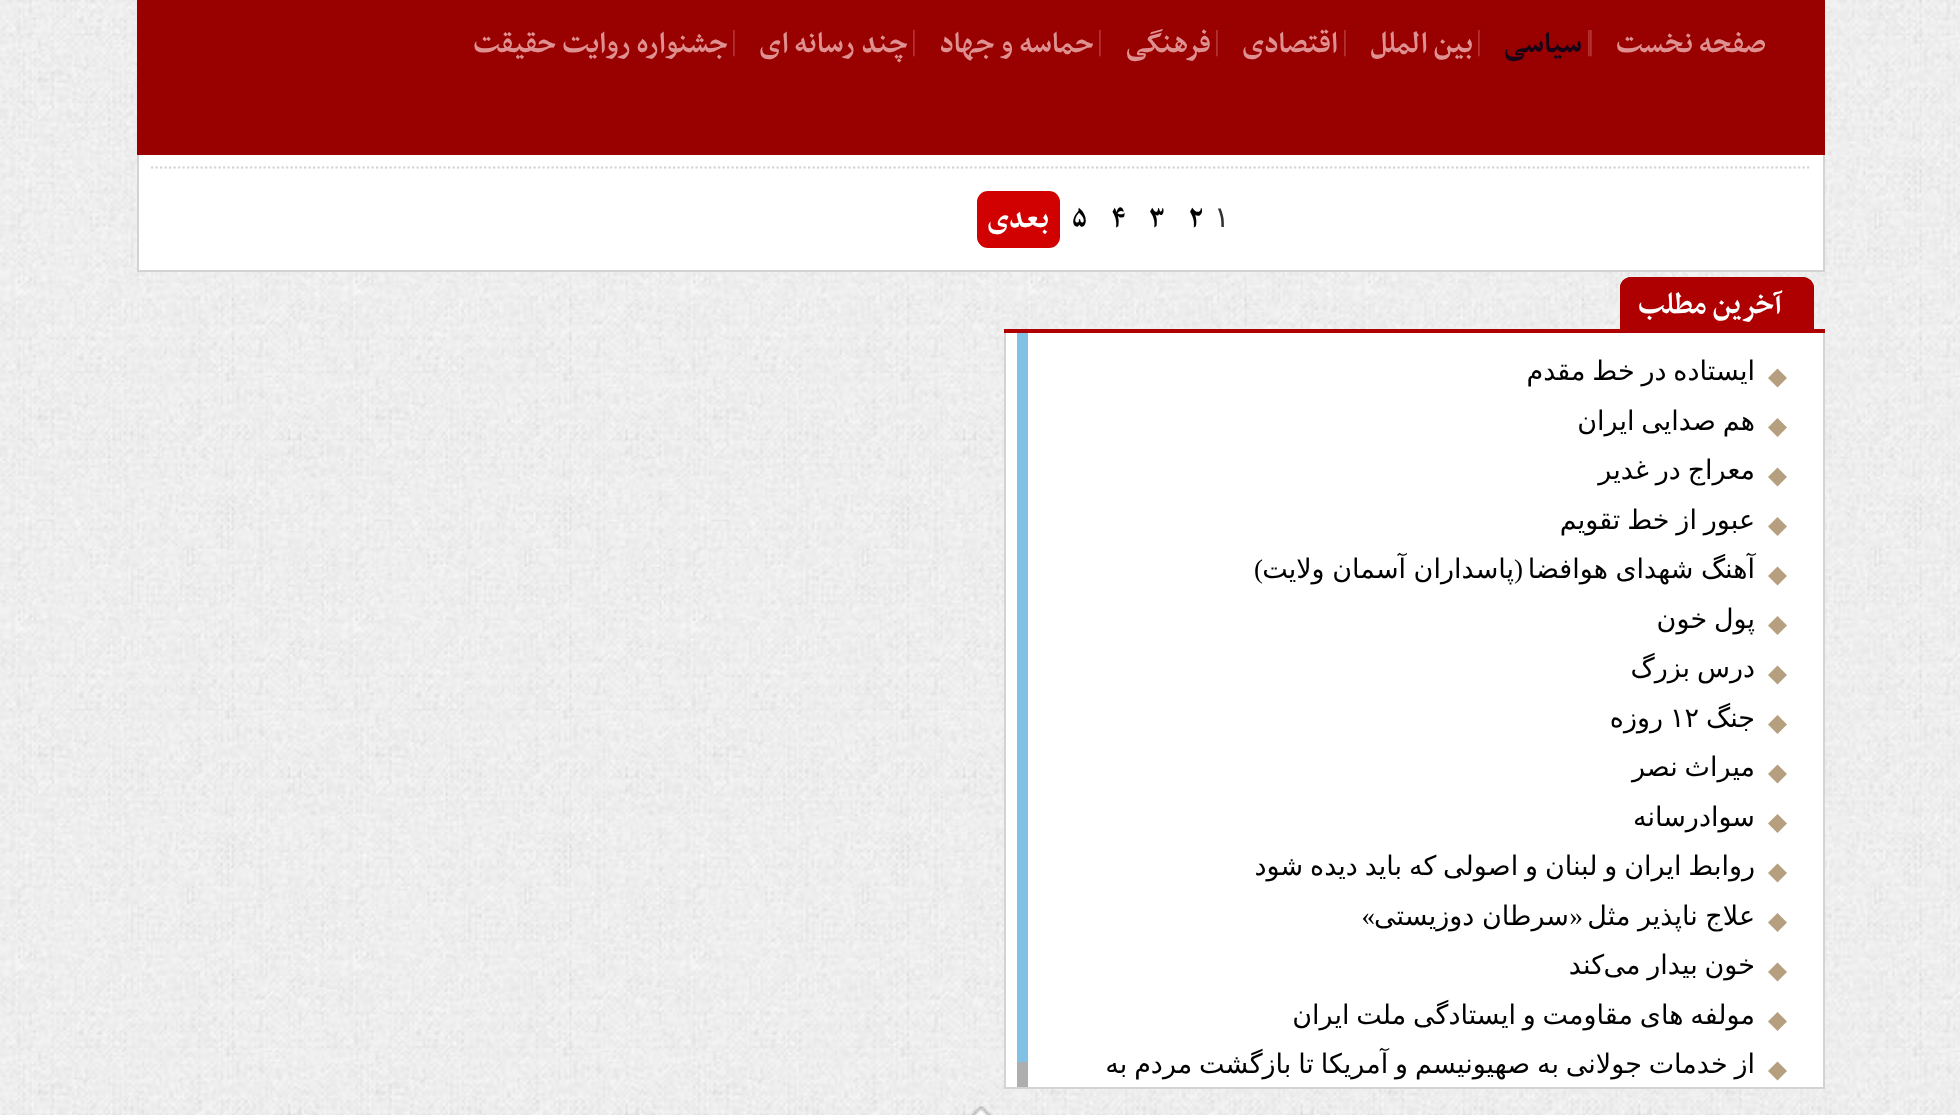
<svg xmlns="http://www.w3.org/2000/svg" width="1960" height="1115">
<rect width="100%" height="100%" fill="#fff"/>
<image x="0" y="0" width="1960" height="1115" href="media/1.png"/>
<rect x="139" y="155" width="1684" height="115" fill="#fff"/>
<rect x="138" y="-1" width="1686" height="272" fill="none" stroke="#d2d3d5" stroke-width="2"/>
<rect x="137" width="1688" height="155" fill="#990100"/>
<text x="1766" y="52" style="font-family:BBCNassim;font-size:33.75px;font-weight:bold;direction:rtl;fill:#df9191">صفحه نخست</text>
<text x="1588" y="50" style="font-family:Liberation Serif;font-size:29px;fill:#b93b3c">|</text>
<text x="1586" y="50" style="font-family:Liberation Serif;font-size:29px;fill:#b93b3c">|</text>
<text x="1582" y="52" style="font-family:BBCNassim;font-size:33.75px;font-weight:bold;direction:rtl;fill:#160517">سیاسی</text>
<text x="1476" y="50" style="font-family:Liberation Serif;font-size:29px;fill:#b93b3c">|</text>
<text x="1473" y="52" style="font-family:BBCNassim;font-size:33.75px;font-weight:bold;direction:rtl;fill:#df9191">بین الملل</text>
<text x="1342" y="50" style="font-family:Liberation Serif;font-size:29px;fill:#b93b3c">|</text>
<text x="1338" y="52" style="font-family:BBCNassim;font-size:33.75px;font-weight:bold;direction:rtl;fill:#df9191">اقتصادی</text>
<text x="1214" y="50" style="font-family:Liberation Serif;font-size:29px;fill:#b93b3c">|</text>
<text x="1211" y="52" style="font-family:BBCNassim;font-size:33.75px;font-weight:bold;direction:rtl;fill:#df9191">فرهنگی</text>
<text x="1097" y="50" style="font-family:Liberation Serif;font-size:29px;fill:#b93b3c">|</text>
<text x="1094" y="52" style="font-family:BBCNassim;font-size:33.75px;font-weight:bold;direction:rtl;fill:#df9191">حماسه و جهاد</text>
<text x="911" y="50" style="font-family:Liberation Serif;font-size:29px;fill:#b93b3c">|</text>
<text x="908" y="52" style="font-family:BBCNassim;font-size:33.75px;font-weight:bold;direction:rtl;fill:#df9191">چند رسانه ای</text>
<text x="731" y="50" style="font-family:Liberation Serif;font-size:29px;fill:#b93b3c">|</text>
<text x="728" y="52" style="font-family:BBCNassim;font-size:33.75px;font-weight:bold;direction:rtl;fill:#df9191">جشنواره روایت حقیقت</text>
<path d="M151 167.5h1660" fill="none" stroke="#d2d2d2" stroke-width="2.2" stroke-dasharray="2.25 2.25"/>
<text x="1214" y="227" style="font-family:DejaVu Sans;font-size:29px;fill:#333">۱</text>
<text x="1188" y="227" style="font-family:BBCNassim;font-size:33.75px;font-weight:bold;fill:#000">۲</text>
<text x="1148" y="227" style="font-family:BBCNassim;font-size:33.75px;font-weight:bold;fill:#000">۳</text>
<text x="1111" y="227" style="font-family:BBCNassim;font-size:33.75px;font-weight:bold;fill:#000">۴</text>
<text x="1071" y="227" style="font-family:BBCNassim;font-size:33.75px;font-weight:bold;fill:#000">۵</text>
<rect x="977" y="191" width="83" height="57" rx="11" fill="#d10101"/>
<text x="1049" y="227" style="font-family:BBCNassim;font-size:33.75px;font-weight:bold;direction:rtl;fill:#fff">بعدی</text>
<rect x="1004" y="329" width="821" height="4" fill="#ae0001"/>
<path d="M1631 277h172c6 0 11 5 11 11v41h-194v-41c0-6 5-11 11-11z" fill="#ae0001"/>
<path d="M1631 277h171c6 0 12 5 12 11v40h-194v-40c0-6 5-11 11-11zm0 4h171c4 0 7 3 7 7v40h-185v-40c0-4 4-7 7-7z" fill="#ae0001" fill-rule="evenodd"/>
<text x="1782" y="313" style="font-family:BBCNassim;font-size:33.75px;font-weight:bold;direction:rtl;fill:#fff">آخرین مطلب</text>
<rect x="1006" y="333" width="817" height="754" fill="#fff"/>
<rect x="1823" y="333" width="2" height="756" fill="#d2d3d5"/>
<rect x="1004" y="1087" width="821" height="2" fill="#d2d3d5"/>
<rect x="1004" y="333" width="2" height="756" fill="#d2d3d5"/>
<path d="M1768 378l9.5-9.5l9.5 9.5l-9.5 9.5z" fill="#b69f7f"/>
<text x="1755" y="380" word-spacing="-1.75" style="font-family:DejaVu Sans;font-size:27px;direction:rtl;fill:#000">ایستاده در خط مقدم</text>
<path d="M1768 427.5l9.5-9.5l9.5 9.5l-9.5 9.5z" fill="#b69f7f"/>
<text x="1755" y="430" word-spacing="-1.75" style="font-family:DejaVu Sans;font-size:27px;direction:rtl;fill:#000">هم صدایی ایران</text>
<path d="M1768 477l9.5-9.5l9.5 9.5l-9.5 9.5z" fill="#b69f7f"/>
<text x="1755" y="479" word-spacing="-1.75" style="font-family:DejaVu Sans;font-size:27px;direction:rtl;fill:#000">معراج در غدیر</text>
<path d="M1768 526.5l9.5-9.5l9.5 9.5l-9.5 9.5z" fill="#b69f7f"/>
<text x="1755" y="529" word-spacing="-1.75" style="font-family:DejaVu Sans;font-size:27px;direction:rtl;fill:#000">عبور از خط تقویم</text>
<path d="M1768 576l9.5-9.5l9.5 9.5l-9.5 9.5z" fill="#b69f7f"/>
<text x="1755" y="578" word-spacing="-1" style="font-family:DejaVu Sans;font-size:27px;direction:rtl;fill:#000">آهنگ شهدای هوافضا</text>
<text x="1514" y="578" word-spacing="-1" style="font-family:DejaVu Sans;font-size:27px;direction:rtl;fill:#000">پاسداران آسمان ولایت</text>
<text x="1523" y="578" style="font-family:Liberation Serif;font-size:27px;direction:rtl;fill:#000">(</text>
<text x="1263" y="578" style="font-family:Liberation Serif;font-size:27px;direction:rtl;fill:#000">)</text>
<path d="M1768 625.5l9.5-9.5l9.5 9.5l-9.5 9.5z" fill="#b69f7f"/>
<text x="1755" y="628" word-spacing="-1.75" style="font-family:DejaVu Sans;font-size:27px;direction:rtl;fill:#000">پول خون</text>
<path d="M1768 675l9.5-9.5l9.5 9.5l-9.5 9.5z" fill="#b69f7f"/>
<text x="1755" y="677" word-spacing="-1.75" style="font-family:DejaVu Sans;font-size:27px;direction:rtl;fill:#000">درس بزرگ</text>
<path d="M1768 724.5l9.5-9.5l9.5 9.5l-9.5 9.5z" fill="#b69f7f"/>
<text x="1755" y="727" style="font-family:DejaVu Sans;font-size:27px;direction:rtl;fill:#000">جنگ</text>
<text x="1670" y="727" style="font-family:DejaVu Sans;font-size:27px;fill:#000">۱۲</text>
<text x="1663" y="727" style="font-family:DejaVu Sans;font-size:27px;direction:rtl;fill:#000">روزه</text>
<path d="M1768 774l9.5-9.5l9.5 9.5l-9.5 9.5z" fill="#b69f7f"/>
<text x="1755" y="776" word-spacing="-1.75" style="font-family:DejaVu Sans;font-size:27px;direction:rtl;fill:#000">میراث نصر</text>
<path d="M1768 823.5l9.5-9.5l9.5 9.5l-9.5 9.5z" fill="#b69f7f"/>
<text x="1755" y="826" style="font-family:DejaVu Sans;font-size:27px;direction:rtl;fill:#000">سوادرسانه</text>
<path d="M1768 873l9.5-9.5l9.5 9.5l-9.5 9.5z" fill="#b69f7f"/>
<text x="1755" y="875" word-spacing="-1.75" style="font-family:DejaVu Sans;font-size:27px;direction:rtl;fill:#000">روابط ایران و لبنان و اصولی که باید دیده شود</text>
<path d="M1768 922.5l9.5-9.5l9.5 9.5l-9.5 9.5z" fill="#b69f7f"/>
<text x="1755" y="925" word-spacing="-1" style="font-family:DejaVu Sans;font-size:27px;direction:rtl;fill:#000">علاج ناپذیر مثل</text>
<text x="1583" y="925" style="font-family:Liberation Serif;font-size:27px;direction:rtl;fill:#000">«</text>
<text x="1569" y="925" word-spacing="-1" style="font-family:DejaVu Sans;font-size:27px;direction:rtl;fill:#000">سرطان دوزیستی</text>
<text x="1375" y="925" style="font-family:Liberation Serif;font-size:27px;direction:rtl;fill:#000">»</text>
<path d="M1768 972l9.5-9.5l9.5 9.5l-9.5 9.5z" fill="#b69f7f"/>
<text x="1755" y="974" word-spacing="-1.75" style="font-family:DejaVu Sans;font-size:27px;direction:rtl;fill:#000">خون بیدار می</text>
<text x="1604" y="974" style="font-family:DejaVu Sans;font-size:27px;direction:rtl;fill:#000">کند</text>
<path d="M1768 1021.5l9.5-9.5l9.5 9.5l-9.5 9.5z" fill="#b69f7f"/>
<text x="1755" y="1024" word-spacing="-1.75" style="font-family:DejaVu Sans;font-size:27px;direction:rtl;fill:#000">مولفه های مقاومت و ایستادگی ملت ایران</text>
<path d="M1768 1071l9.5-9.5l9.5 9.5l-9.5 9.5z" fill="#b69f7f"/>
<text x="1755" y="1073" word-spacing="-1.75" style="font-family:DejaVu Sans;font-size:27px;direction:rtl;fill:#000">از خدمات جولانی به صهیونیسم و آمریکا تا بازگشت مردم به</text>
<rect x="1017" y="1062" width="11" height="25" fill="#aeaeae"/>
<rect x="1017" y="333" width="11" height="729" fill="#81c1e5"/>
<image x="971" y="1106" width="20" height="9" href="media/2.png"/>
</svg>
